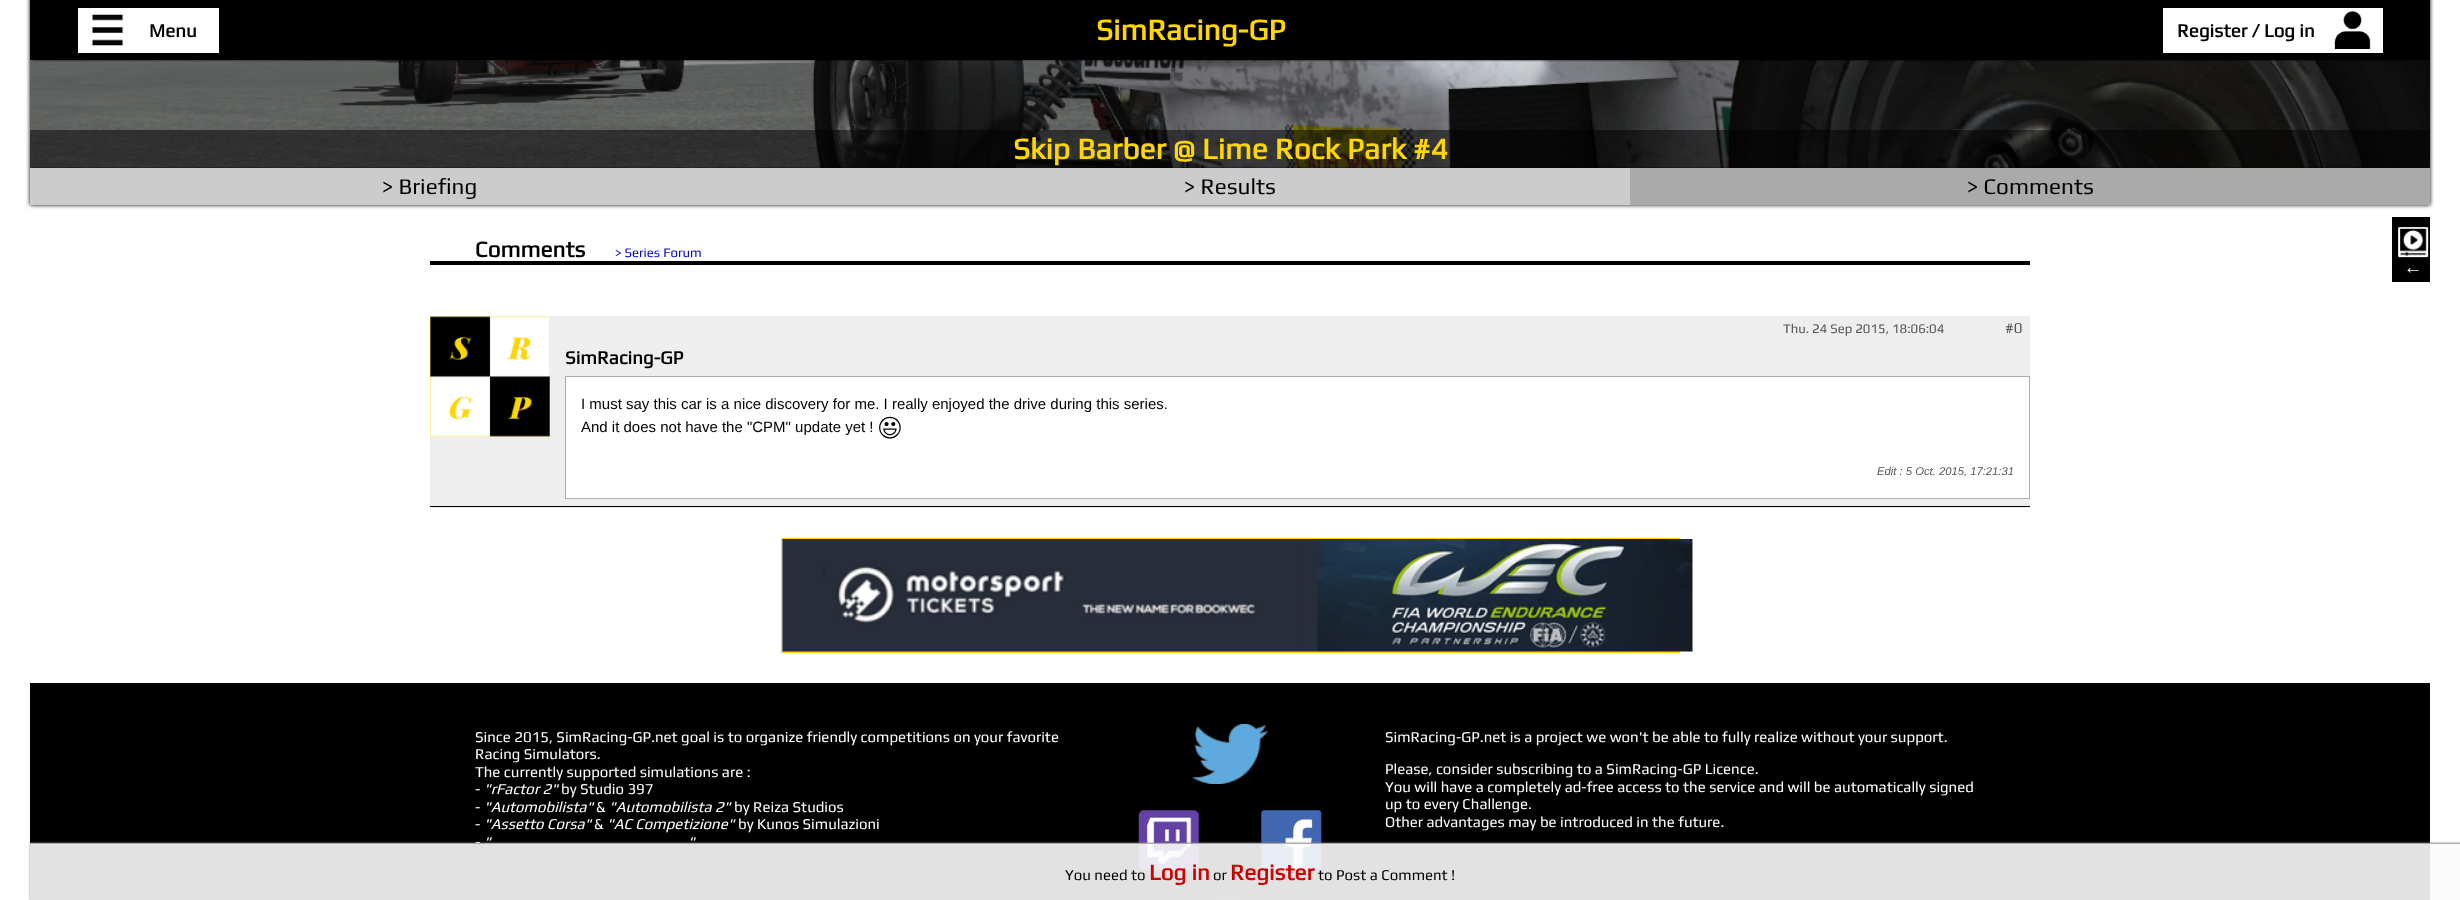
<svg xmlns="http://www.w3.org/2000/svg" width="2460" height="900">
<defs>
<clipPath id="clip1"><path d="M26 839h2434v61h-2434zm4 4h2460v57h-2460z" clip-rule="evenodd"/></clipPath>
</defs>
<rect width="100%" height="100%" fill="#fff"/>
<rect x="30" y="-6" width="2400" height="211" fill="#000" filter="blur(2px)"/>
<image x="30" y="60" width="2400" height="108" href="media/3.png"/>
<rect x="33" y="5" width="2395" height="55" fill="#000" filter="blur(1px)"/>
<rect x="30" width="2400" height="60" fill="#000"/>
<rect x="78" y="8" width="141" height="45" fill="#fff"/>
<image x="91" y="14" width="33" height="32" href="media/1.png"/>
<text x="149" y="37" style="font-family:Play;font-size:18.75px;font-weight:bold;fill:#000">Menu</text>
<text x="1096" y="40" style="font-family:Play;font-size:30px;font-weight:bold;fill:#ffd700">SimRacing-GP</text>
<rect x="2163" y="8" width="220" height="45" fill="#fff"/>
<text x="2177" y="37" style="font-family:Play;font-size:18.75px;font-weight:bold;fill:#000">Register / Log in</text>
<image x="2334" y="11" width="37" height="38" href="media/2.png"/>
<rect x="30" y="130" width="2400" height="38" fill="#00000080"/>
<text x="1013" y="159" style="font-family:Play;font-size:30px;font-weight:bold;fill:#ffd700">Skip Barber @ Lime Rock Park #4</text>
<rect x="30" y="168" width="1600" height="37" fill="#ccc"/>
<text x="382" y="194" style="font-family:Play;font-size:22.5px;fill:#000">&gt; Briefing</text>
<text x="1184" y="194" style="font-family:Play;font-size:22.5px;fill:#000">&gt; Results</text>
<rect x="1630" y="168" width="800" height="37" fill="#aaa"/>
<text x="1967" y="194" style="font-family:Play;font-size:22.5px;fill:#000">&gt; Comments</text>
<rect x="430" y="261" width="1600" height="4" fill="#000"/>
<text x="475" y="257" style="font-family:Play;font-size:22.5px;font-weight:bold;fill:#000">Comments</text>
<text x="615" y="257" style="font-family:Play;font-size:13.1px;fill:#00c">&gt; Series Forum</text>
<rect x="430" y="316" width="1600" height="192" fill="#eee"/>
<rect x="430" y="506" width="1600" height="1" fill="#000"/>
<image x="430" y="316" width="120" height="121" href="media/4.png"/>
<text x="1783" y="333" style="font-family:Play;font-size:13.1px;fill:#555">Thu. 24 Sep 2015, 18:06:04</text>
<text x="2005" y="333" style="font-family:Play;font-size:15px;fill:#555">#0</text>
<text x="565" y="364" style="font-family:Play;font-size:18.75px;font-weight:bold;fill:#000">SimRacing-GP</text>
<rect x="565.5" y="376.5" width="1464" height="122" fill="#fff" stroke="#aaa"/>
<text x="581" y="409" style="font-family:Liberation Sans;font-size:15px;fill:#000">I must say this car is a nice discovery for me. I really enjoyed the drive during this series.</text>
<text x="581" y="432" style="font-family:Liberation Sans;font-size:15px;fill:#000">And it does not have the "CPM" update yet !</text>
<text x="878" y="435" style="font-family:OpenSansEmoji;font-size:26px;fill:#000">😃</text>
<text x="1877" y="475" style="font-family:Liberation Sans;font-size:11.25px;font-style:italic;fill:#555">Edit : 5 Oct. 2015, 17:21:31</text>
<rect x="2392" y="217" width="38" height="65" fill="#000"/>
<image x="2398" y="227" width="31" height="31" href="media/5.png"/>
<text x="2418" y="275" transform="rotate(-90 2418 275)" style="font-family:Liberation Sans;font-size:18.75px;font-weight:bold;fill:#fff">↑</text>
<rect x="781.5" y="538.5" width="898" height="114" fill="#ccc" stroke="#ffd700"/>
<image x="782" y="539" width="911" height="113" href="media/6.png"/>
<rect x="30" y="683" width="2400" height="217" fill="#000"/>
<image x="1138" y="810" width="61" height="61" href="media/8.png"/>
<image x="1261" y="810" width="61" height="61" href="media/9.png"/>
<image x="1216" y="896" width="28" height="4" href="media/10.png"/>
<g clip-path="url(#clip1)">
<rect x="30" y="843" width="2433" height="57" fill="#888" filter="blur(1px)"/>
</g>
<rect x="30" y="844" width="2430" height="56" fill="#fbfbfbe6"/>
<text x="475" y="847" style="font-family:Play;font-size:15px;fill:#fff">-</text>
<rect x="30" y="843" width="2430" height="1" fill="#aaa"/>
<text x="1065" y="880" style="font-family:Play;font-size:15px;fill:#000">You need to</text>
<text x="1149" y="880" style="font-family:Play;font-size:22.5px;font-weight:bold;fill:#c00">Log in</text>
<text x="1213" y="880" style="font-family:Play;font-size:15px;fill:#000">or</text>
<text x="1230" y="880" style="font-family:Play;font-size:22.5px;font-weight:bold;fill:#c00">Register</text>
<text x="1318" y="880" style="font-family:Play;font-size:15px;fill:#000">to Post a Comment !</text>
<text x="475" y="742" style="font-family:Play;font-size:15px;fill:#fff">Since 2015, SimRacing-GP.net goal is to organize friendly competitions on your favorite</text>
<text x="475" y="759" style="font-family:Play;font-size:15px;fill:#fff">Racing Simulators.</text>
<text x="475" y="777" style="font-family:Play;font-size:15px;fill:#fff">The currently supported simulations are :</text>
<text x="475" y="794" style="font-family:Play;font-size:15px;fill:#fff">-</text>
<text x="484" y="794" style="font-family:Play;font-size:15px;font-style:italic;fill:#fff">"rFactor 2"</text>
<text x="561" y="794" style="font-family:Play;font-size:15px;fill:#fff">by Studio 397</text>
<text x="475" y="812" style="font-family:Play;font-size:15px;fill:#fff">-</text>
<text x="484" y="812" style="font-family:Play;font-size:15px;font-style:italic;fill:#fff">"Automobilista"</text>
<text x="596" y="812" style="font-family:Play;font-size:15px;fill:#fff">&amp;</text>
<text x="609" y="812" style="font-family:Play;font-size:15px;font-style:italic;fill:#fff">"Automobilista 2"</text>
<text x="734" y="812" style="font-family:Play;font-size:15px;fill:#fff">by Reiza Studios</text>
<text x="475" y="829" style="font-family:Play;font-size:15px;fill:#fff">-</text>
<text x="484" y="829" style="font-family:Play;font-size:15px;font-style:italic;fill:#fff">"Assetto Corsa"</text>
<text x="594" y="829" style="font-family:Play;font-size:15px;fill:#fff">&amp;</text>
<text x="607" y="829" style="font-family:Play;font-size:15px;font-style:italic;fill:#fff">"AC Competizione"</text>
<text x="738" y="829" style="font-family:Play;font-size:15px;fill:#fff">by Kunos Simulazioni</text>
<text x="484" y="847" style="font-family:Play;font-size:15px;font-style:italic;fill:#fff">"</text>
<text x="688" y="847" style="font-family:Play;font-size:15px;font-style:italic;fill:#fff">"</text>
<image x="1192" y="724" width="76" height="60" href="media/7.png"/>
<text x="1385" y="742" style="font-family:Play;font-size:15px;fill:#fff">SimRacing-GP.net is a project we won't be able to fully realize without your support.</text>
<text x="1385" y="774" style="font-family:Play;font-size:15px;fill:#fff">Please, consider subscribing to a SimRacing-GP Licence.</text>
<text x="1385" y="792" style="font-family:Play;font-size:15px;fill:#fff">You will have a completely ad-free access to the service and will be automatically signed</text>
<text x="1385" y="809" style="font-family:Play;font-size:15px;fill:#fff">up to every Challenge.</text>
<text x="1385" y="827" style="font-family:Play;font-size:15px;fill:#fff">Other advantages may be introduced in the future.</text>
</svg>
